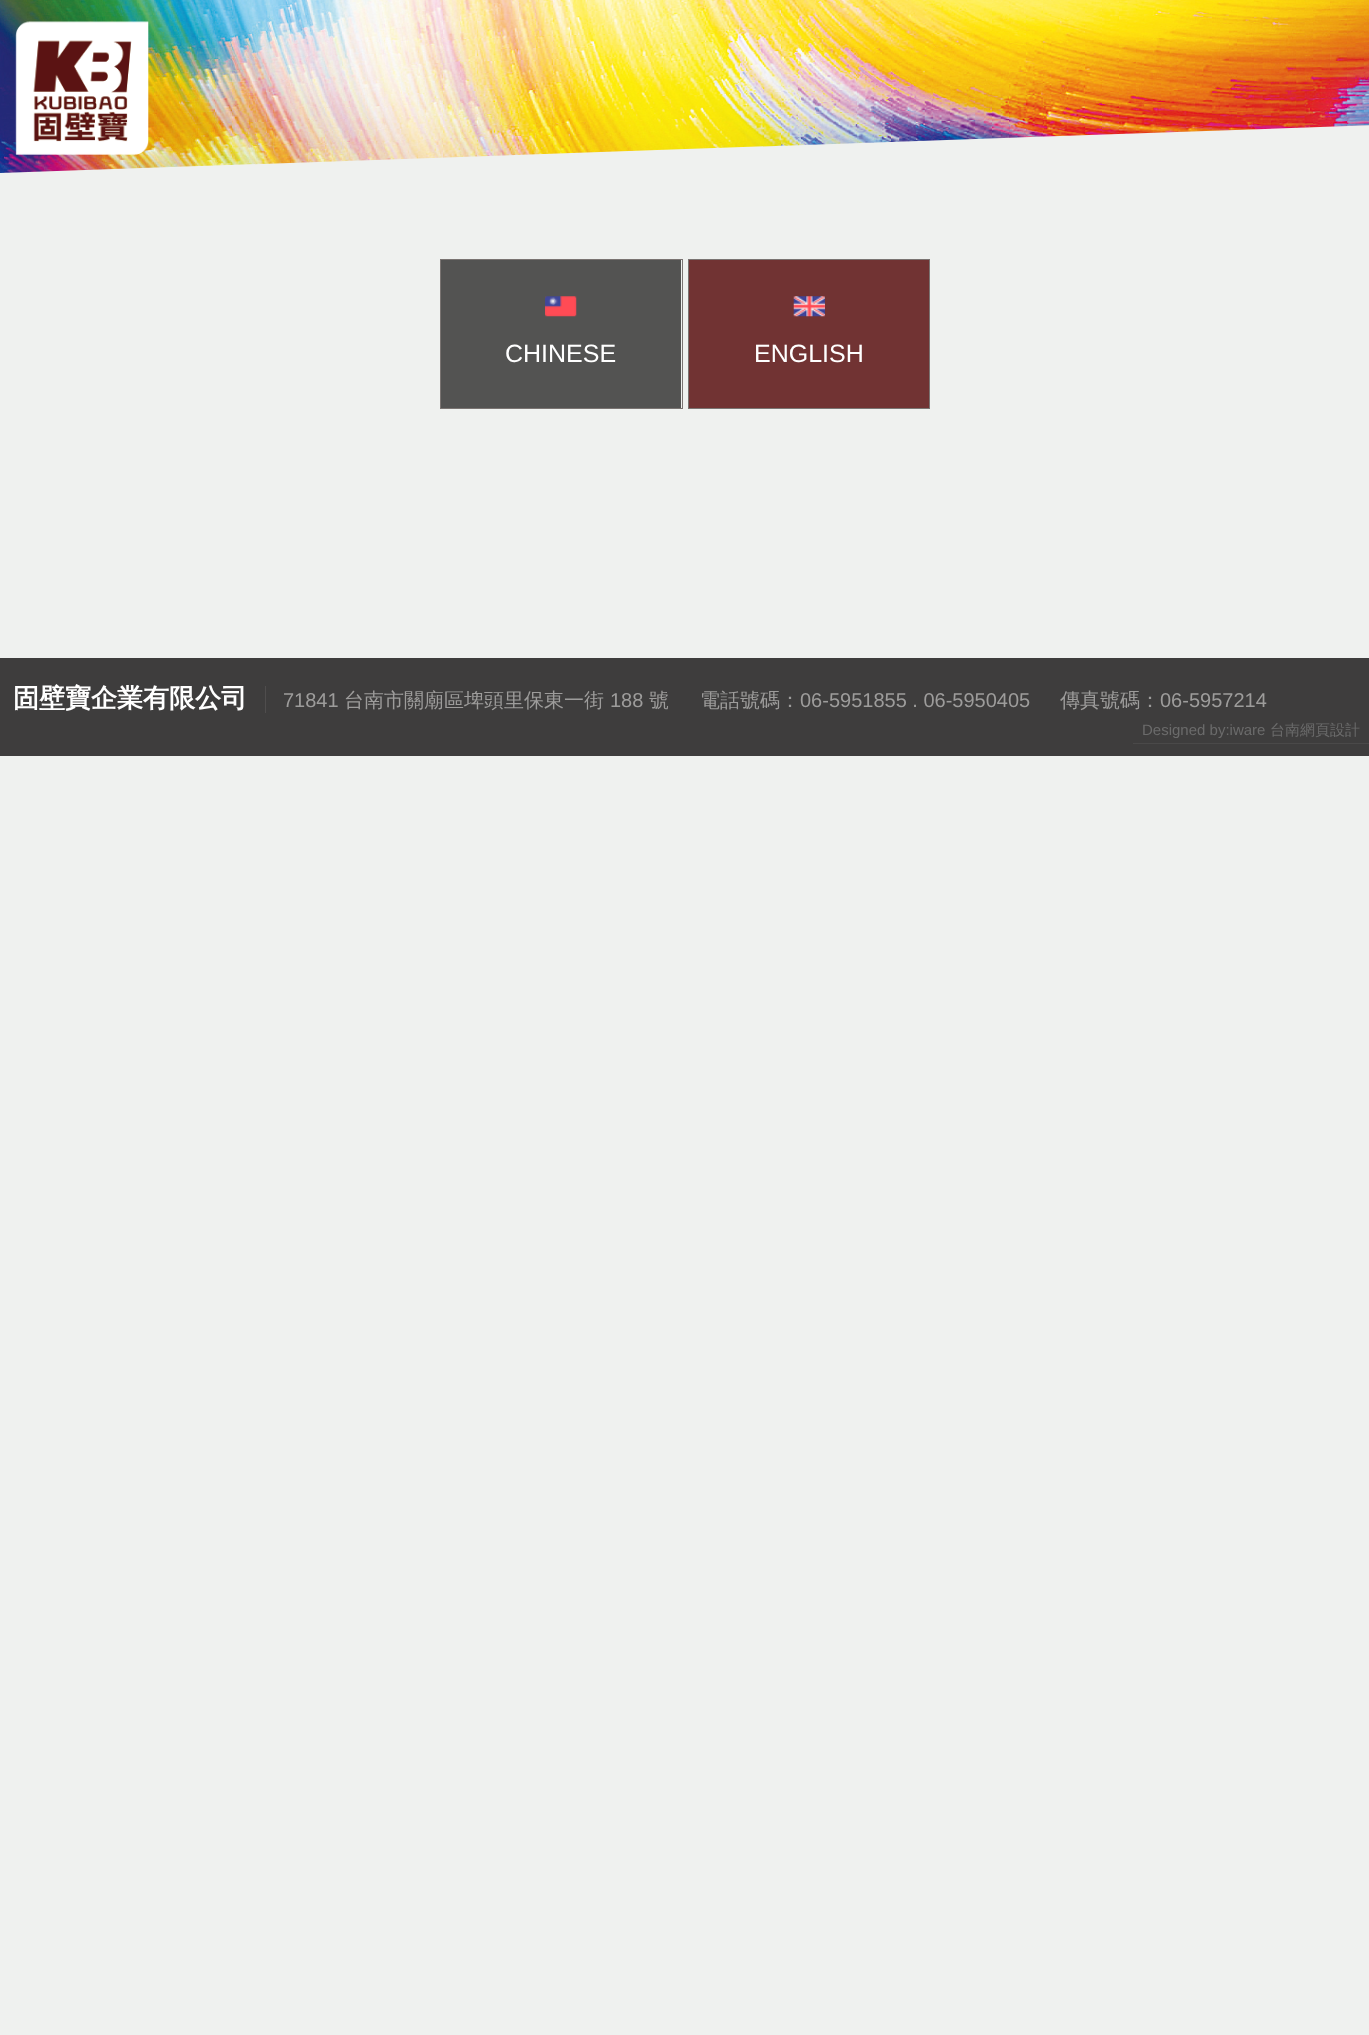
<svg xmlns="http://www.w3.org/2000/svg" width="1369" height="2035">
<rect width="100%" height="100%" fill="#eff1ef"/>
<image x="0" y="0" width="1369" height="173" href="media/1.png"/>
<image x="15" y="21" width="134" height="134" href="media/2.png"/>
<rect x="440.5" y="259.5" width="242" height="149" fill="none" stroke="#7a7472"/>
<rect x="441" y="260" width="240" height="148" fill="#535352"/>
<image x="545" y="296" width="32" height="21" href="media/3.png"/>
<text x="505" y="362" style="font-family:Liberation Sans;font-size:25px;fill:#fff">CHINESE</text>
<rect x="688.5" y="259.5" width="241" height="149" fill="none" stroke="#7a7472"/>
<rect x="689" y="260" width="240" height="148" fill="#713333"/>
<image x="793" y="296" width="32" height="21" href="media/4.png"/>
<text x="754" y="362" style="font-family:Liberation Sans;font-size:25px;fill:#fff">ENGLISH</text>
<rect y="658" width="1369" height="98" fill="#3e3d3d"/>
<text x="13" y="707" style="font-family:WenQuanYi Zen Hei;font-size:26px;font-weight:bold;fill:#fff">固壁寶企業有限公司</text>
<rect x="265" y="686" width="1" height="27" fill="#4f4d4d"/>
<text x="283" y="707" style="font-family:Liberation Sans;font-size:20px;fill:#9d9c9b">71841</text>
<text x="344" y="707" style="font-family:WenQuanYi Zen Hei;font-size:20px;font-weight:500;fill:#9d9c9b">台南市關廟區埤頭里保東一街</text>
<text x="610" y="707" style="font-family:Liberation Sans;font-size:20px;fill:#9d9c9b">188</text>
<text x="649" y="707" style="font-family:WenQuanYi Zen Hei;font-size:20px;font-weight:500;fill:#9d9c9b">號</text>
<text x="700" y="707" style="font-family:WenQuanYi Zen Hei;font-size:20px;font-weight:500;fill:#9d9c9b">電話號碼：</text>
<text x="800" y="707" style="font-family:Liberation Sans;font-size:20px;fill:#9d9c9b">06-5951855 . 06-5950405</text>
<text x="1060" y="707" style="font-family:WenQuanYi Zen Hei;font-size:20px;font-weight:500;fill:#9d9c9b">傳真號碼：</text>
<text x="1160" y="707" style="font-family:Liberation Sans;font-size:20px;fill:#9d9c9b">06-5957214</text>
<rect x="1133" y="743" width="236" height="1" fill="#4a4949"/>
<text x="1142" y="735" style="font-family:Liberation Sans;font-size:15px;fill:#6b6b6b">Designed by:iware</text>
<text x="1270" y="735" style="font-family:WenQuanYi Zen Hei;font-size:15px;font-weight:500;fill:#6b6b6b">台南網頁設計</text>
</svg>
